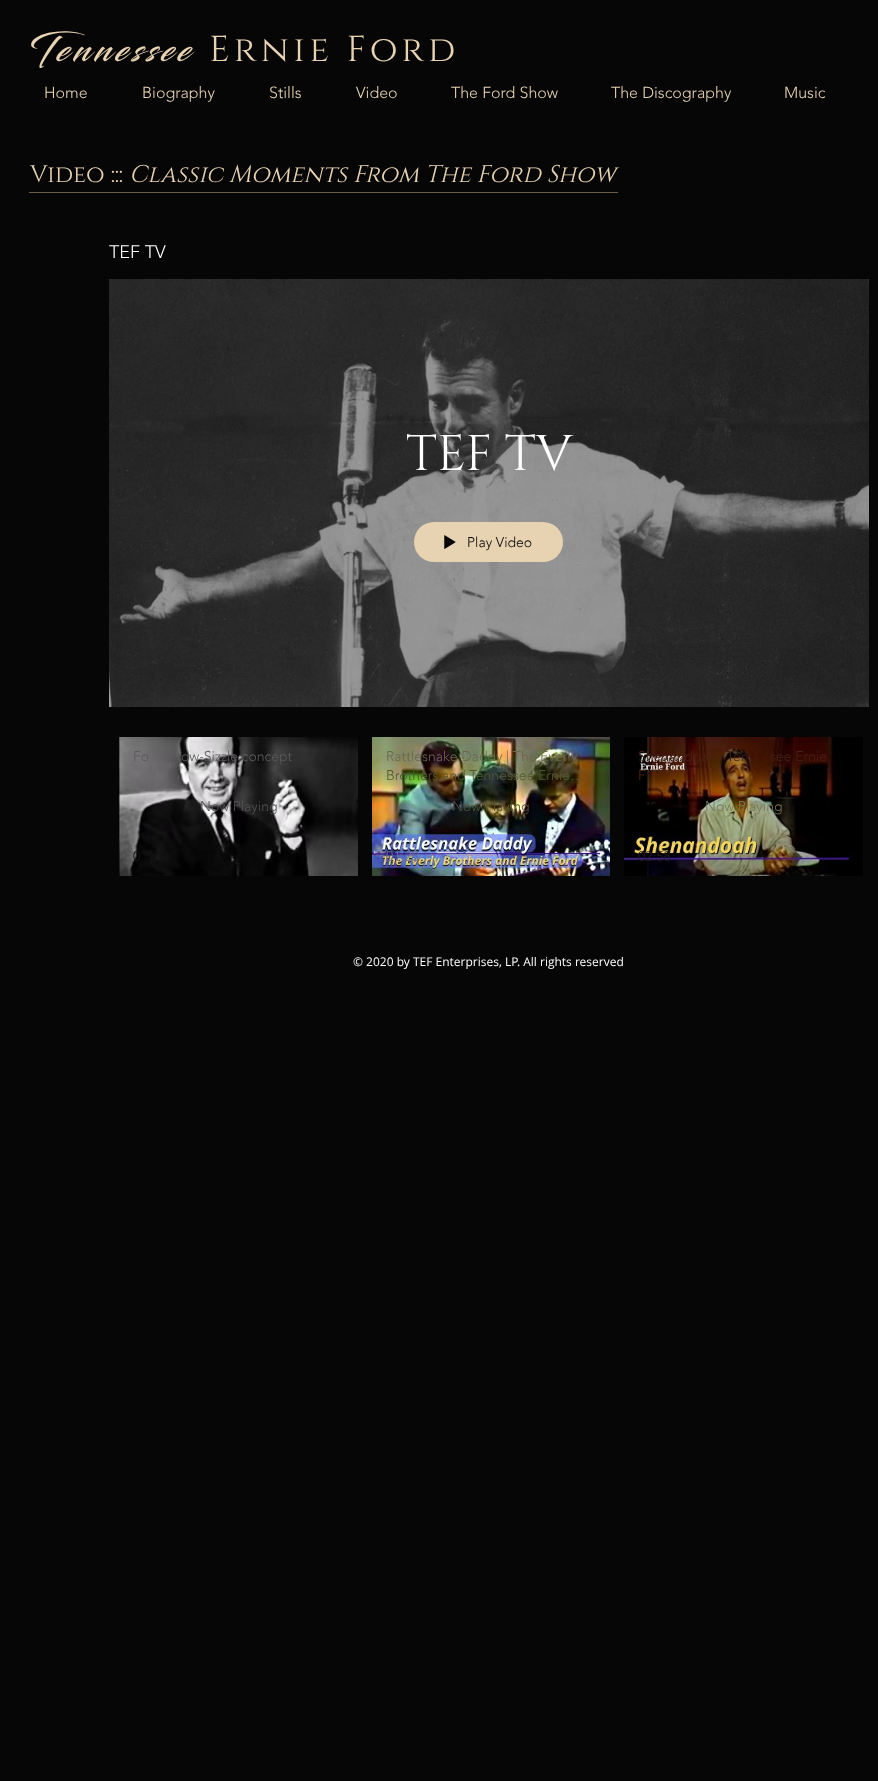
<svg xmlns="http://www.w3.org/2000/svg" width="878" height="1781">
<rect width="100%" height="100%" fill="#070606"/>
<text x="29" y="61" style="font-family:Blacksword;font-size:36px;font-weight:900;letter-spacing:4.25px;fill:#e7d3b1">Tennessee</text>
<text x="209" y="61" style="font-family:Cinzel;font-size:36px;letter-spacing:4.25px;fill:#e7d3b1">Ernie Ford</text>
<text x="44" y="98" style="font-family:'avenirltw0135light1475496';font-size:16px;font-weight:300;fill:#e7d3b1">Home</text>
<text x="142" y="98" style="font-family:'avenirltw0135light1475496';font-size:16px;font-weight:300;fill:#e7d3b1">Biography</text>
<text x="269" y="98" style="font-family:'avenirltw0135light1475496';font-size:16px;font-weight:300;fill:#e7d3b1">Stills</text>
<text x="356" y="98" style="font-family:'avenirltw0135light1475496';font-size:16px;font-weight:300;fill:#e7d3b1">Video</text>
<text x="451" y="98" style="font-family:'avenirltw0135light1475496';font-size:16px;font-weight:300;fill:#e7d3b1">The Ford Show</text>
<text x="611" y="98" style="font-family:'avenirltw0135light1475496';font-size:16px;font-weight:300;fill:#e7d3b1">The Discography</text>
<text x="784" y="98" style="font-family:'avenirltw0135light1475496';font-size:16px;font-weight:300;fill:#e7d3b1">Music</text>
<text x="30" y="182" style="font-family:Cinzel;font-size:24px;fill:#e7d3b1">Video :::</text>
<text x="129" y="182" style="font-family:Cinzel;font-size:24px;font-style:italic;fill:#e7d3b1">Classic Moments From The Ford Show</text>
<rect x="29" y="192" width="589" height="1" fill="#6b5d46"/>
<text x="109" y="258" style="font-family:'avenirltw0135light1475496';font-size:18px;font-weight:300;fill:#fff">TEF TV</text>
<image x="109" y="279" width="760" height="428" href="media/1.png"/>
<image x="109" y="297" width="754" height="410" href="media/2.png"/>
<text x="406" y="470" style="font-family:Cinzel;font-size:50px;fill:#fff">TEF TV</text>
<rect x="414" y="522" width="149" height="40" rx="20" fill="#e7d3b1"/>
<image x="444" y="535" width="12" height="14" href="media/3.png"/>
<text x="467" y="547" style="font-family:'avenirltw0135light1475496';font-size:14px;font-weight:300;fill:#070606">Play Video</text>
<image x="309" y="737" width="49" height="139" href="media/4.png"/>
<image x="119" y="737" width="190" height="139" href="media/5.png"/>
<text x="133" y="761" style="font-family:'avenirltw0135light1475496';font-size:14px;font-weight:300;fill:#5c5b5d">Fo</text>
<text x="181" y="761" style="font-family:'avenirltw0135light1475496';font-size:14px;font-weight:300;fill:#5c5b5d">ow-Sizzle concept</text>
<text x="200" y="811" style="font-family:'avenirltw0135light1475496';font-size:14px;font-weight:300;fill:#535253">Now Playing</text>
<text x="133" y="861" style="font-family:'avenirltw0135light1475496';font-size:14px;font-weight:300;fill:#181818">0</text>
<image x="372" y="737" width="238" height="139" href="media/6.png"/>
<text x="386" y="761" style="font-family:'avenirltw0135light1475496';font-size:14px;font-weight:300;fill:#6a684d">Rattlesnake Daddy | The Everly</text>
<text x="386" y="780" style="font-family:'avenirltw0135light1475496';font-size:14px;font-weight:300;fill:#525731">Brothers and Tennessee Ernie…</text>
<text x="452" y="811" style="font-family:'avenirltw0135light1475496';font-size:14px;font-weight:300;fill:#535038">Now Playing</text>
<text x="386" y="861" style="font-family:'avenirltw0135light1475496';font-size:14px;font-weight:300;fill:#696c97">01:28</text>
<rect x="855" y="737" width="8" height="139" fill="#000"/>
<image x="850" y="737" width="5" height="139" href="media/7.png"/>
<image x="624" y="737" width="226" height="139" href="media/8.png"/>
<text x="638" y="761" style="font-family:'avenirltw0135light1475496';font-size:14px;font-weight:300;fill:#452216">Shenandoah | Ten</text>
<text x="770" y="761" style="font-family:'avenirltw0135light1475496';font-size:14px;font-weight:300;fill:#452216">see Ernie</text>
<text x="638" y="780" style="font-family:'avenirltw0135light1475496';font-size:14px;font-weight:300;fill:#562807">F</text>
<text x="705" y="811" style="font-family:'avenirltw0135light1475496';font-size:14px;font-weight:300;fill:#777959">Now Playing</text>
<text x="638" y="861" style="font-family:'avenirltw0135light1475496';font-size:14px;font-weight:300;fill:#281f27">02:58</text>
<text x="353" y="966" style="font-family:Open Sans;font-size:12px;fill:#fff">© 2020 by TEF Enterprises, LP. All rights reserved</text>
</svg>
